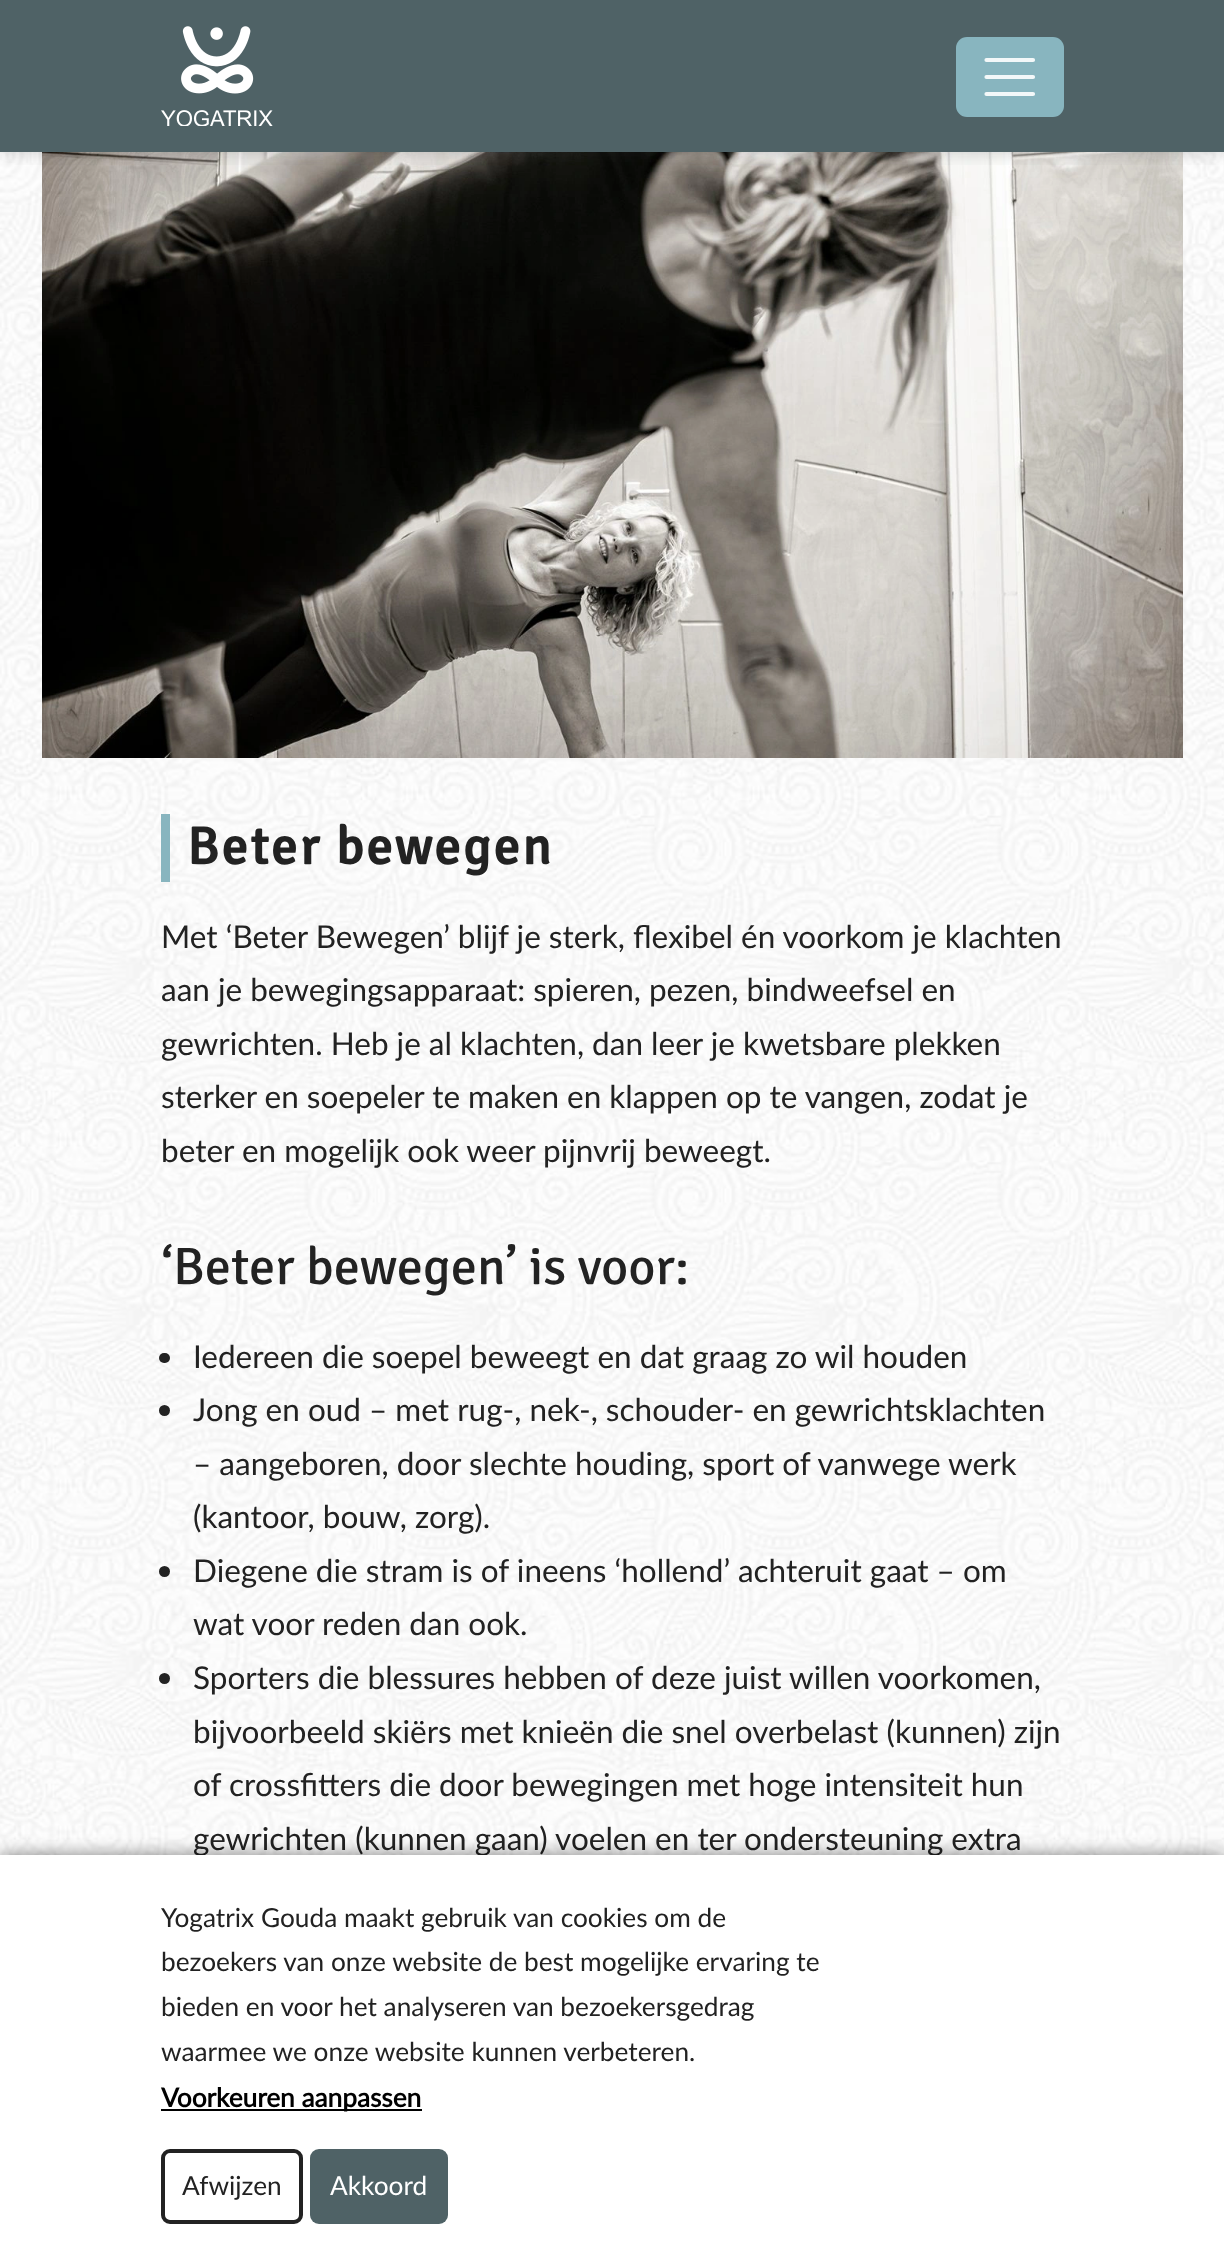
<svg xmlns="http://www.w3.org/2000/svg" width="1224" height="2263">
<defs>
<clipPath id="clip1"><rect x="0" y="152" width="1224" height="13"/></clipPath>
</defs>
<rect width="100%" height="100%" fill="#fff"/>
<image x="0" y="152" width="1224" height="1703" href="media/1.png"/>
<rect width="1224" height="152" fill="#4f6266"/>
<image x="42" y="152" width="1141" height="606" href="media/3.png"/>
<g clip-path="url(#clip1)">
<rect width="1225" height="152" fill="#32323240" filter="blur(9px)"/>
</g>
<image x="161" y="26" width="112" height="100" href="media/2.png"/>
<rect x="956" y="37" width="108" height="80" rx="11" fill="#88b5bf"/>
<path d="M986.5 60h46.5m-46.5 17h46.5m-46.5 17h46.5" fill="none" stroke="#f3f8f9" stroke-width="4.2" stroke-linecap="round"/>
<rect x="161" y="814" width="9" height="68" fill="#88b5bf"/>
<text x="187" y="864" style="font-family:Signika;font-size:52.5px;font-weight:bold;letter-spacing:2.6px;fill:#222">Beter bewegen</text>
<text x="161" y="948" style="font-family:Lato;font-size:31.5px;fill:#222">Met ‘Beter Bewegen’ blijf je sterk, flexibel én voorkom je klachten</text>
<text x="161" y="1001" style="font-family:Lato;font-size:31.5px;fill:#222">aan je bewegingsapparaat: spieren, pezen, bindweefsel en</text>
<text x="161" y="1055" style="font-family:Lato;font-size:31.5px;fill:#222">gewrichten. Heb je al klachten, dan leer je kwetsbare plekken</text>
<text x="161" y="1108" style="font-family:Lato;font-size:31.5px;fill:#222">sterker en soepeler te maken en klappen op te vangen, zodat je</text>
<text x="161" y="1162" style="font-family:Lato;font-size:31.5px;fill:#222">beter en mogelijk ook weer pijnvrij beweegt.</text>
<text x="161" y="1284" style="font-family:Signika;font-size:52.5px;fill:#222">‘Beter bewegen’ is voor:</text>
<rect x="159" y="1353" width="11" height="10" rx="5" fill="#222"/>
<text x="193" y="1368" style="font-family:Lato;font-size:31.5px;fill:#222">Iedereen die soepel beweegt en dat graag zo wil houden</text>
<circle cx="164.5" cy="1410.5" r="5.5" fill="#222"/>
<text x="193" y="1421" style="font-family:Lato;font-size:31.5px;fill:#222">Jong en oud – met rug-, nek-, schouder- en gewrichtsklachten</text>
<text x="193" y="1475" style="font-family:Lato;font-size:31.5px;fill:#222">– aangeboren, door slechte houding, sport of vanwege werk</text>
<text x="193" y="1528" style="font-family:Lato;font-size:31.5px;fill:#222">(kantoor, bouw, zorg).</text>
<circle cx="164.5" cy="1571.5" r="5.5" fill="#222"/>
<text x="193" y="1582" style="font-family:Lato;font-size:31.5px;fill:#222">Diegene die stram is of ineens ‘hollend’ achteruit gaat – om</text>
<text x="193" y="1635" style="font-family:Lato;font-size:31.5px;fill:#222">wat voor reden dan ook.</text>
<circle cx="164.5" cy="1678.5" r="5.5" fill="#222"/>
<text x="193" y="1689" style="font-family:Lato;font-size:31.5px;fill:#222">Sporters die blessures hebben of deze juist willen voorkomen,</text>
<text x="193" y="1743" style="font-family:Lato;font-size:31.5px;fill:#222">bijvoorbeeld skiërs met knieën die snel overbelast (kunnen) zijn</text>
<text x="193" y="1796" style="font-family:Lato;font-size:31.5px;fill:#222">of crossfitters die door bewegingen met hoge intensiteit hun</text>
<text x="193" y="1850" style="font-family:Lato;font-size:31.5px;fill:#222">gewrichten (kunnen gaan) voelen en ter ondersteuning extra</text>
<rect y="1855" width="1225" height="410" fill="#00000080" filter="blur(9px)"/>
<rect y="1855" width="1224" height="408" fill="#fff"/>
<text x="161" y="1927" style="font-family:Lato;font-size:26.25px;fill:#222">Yogatrix Gouda maakt gebruik van cookies om de</text>
<text x="161" y="1971" style="font-family:Lato;font-size:26.25px;fill:#222">bezoekers van onze website de best mogelijke ervaring te</text>
<text x="161" y="2016" style="font-family:Lato;font-size:26.25px;fill:#222">bieden en voor het analyseren van bezoekersgedrag</text>
<text x="161" y="2061" style="font-family:Lato;font-size:26.25px;fill:#222">waarmee we onze website kunnen verbeteren.</text>
<rect x="161" y="2109" width="261" height="2" fill="#000"/>
<text x="161" y="2107" style="font-family:Lato;font-size:26.25px;font-weight:bold;fill:#000">Voorkeuren aanpassen</text>
<rect x="163" y="2151" width="138" height="71" rx="7" fill="none" stroke="#222" stroke-width="4"/>
<text x="182" y="2195" style="font-family:Lato;font-size:26.25px;fill:#222">Afwijzen</text>
<rect x="310" y="2149" width="138" height="75" rx="9" fill="#4f6266"/>
<text x="330" y="2195" style="font-family:Lato;font-size:26.25px;fill:#fff">Akkoord</text>
</svg>
